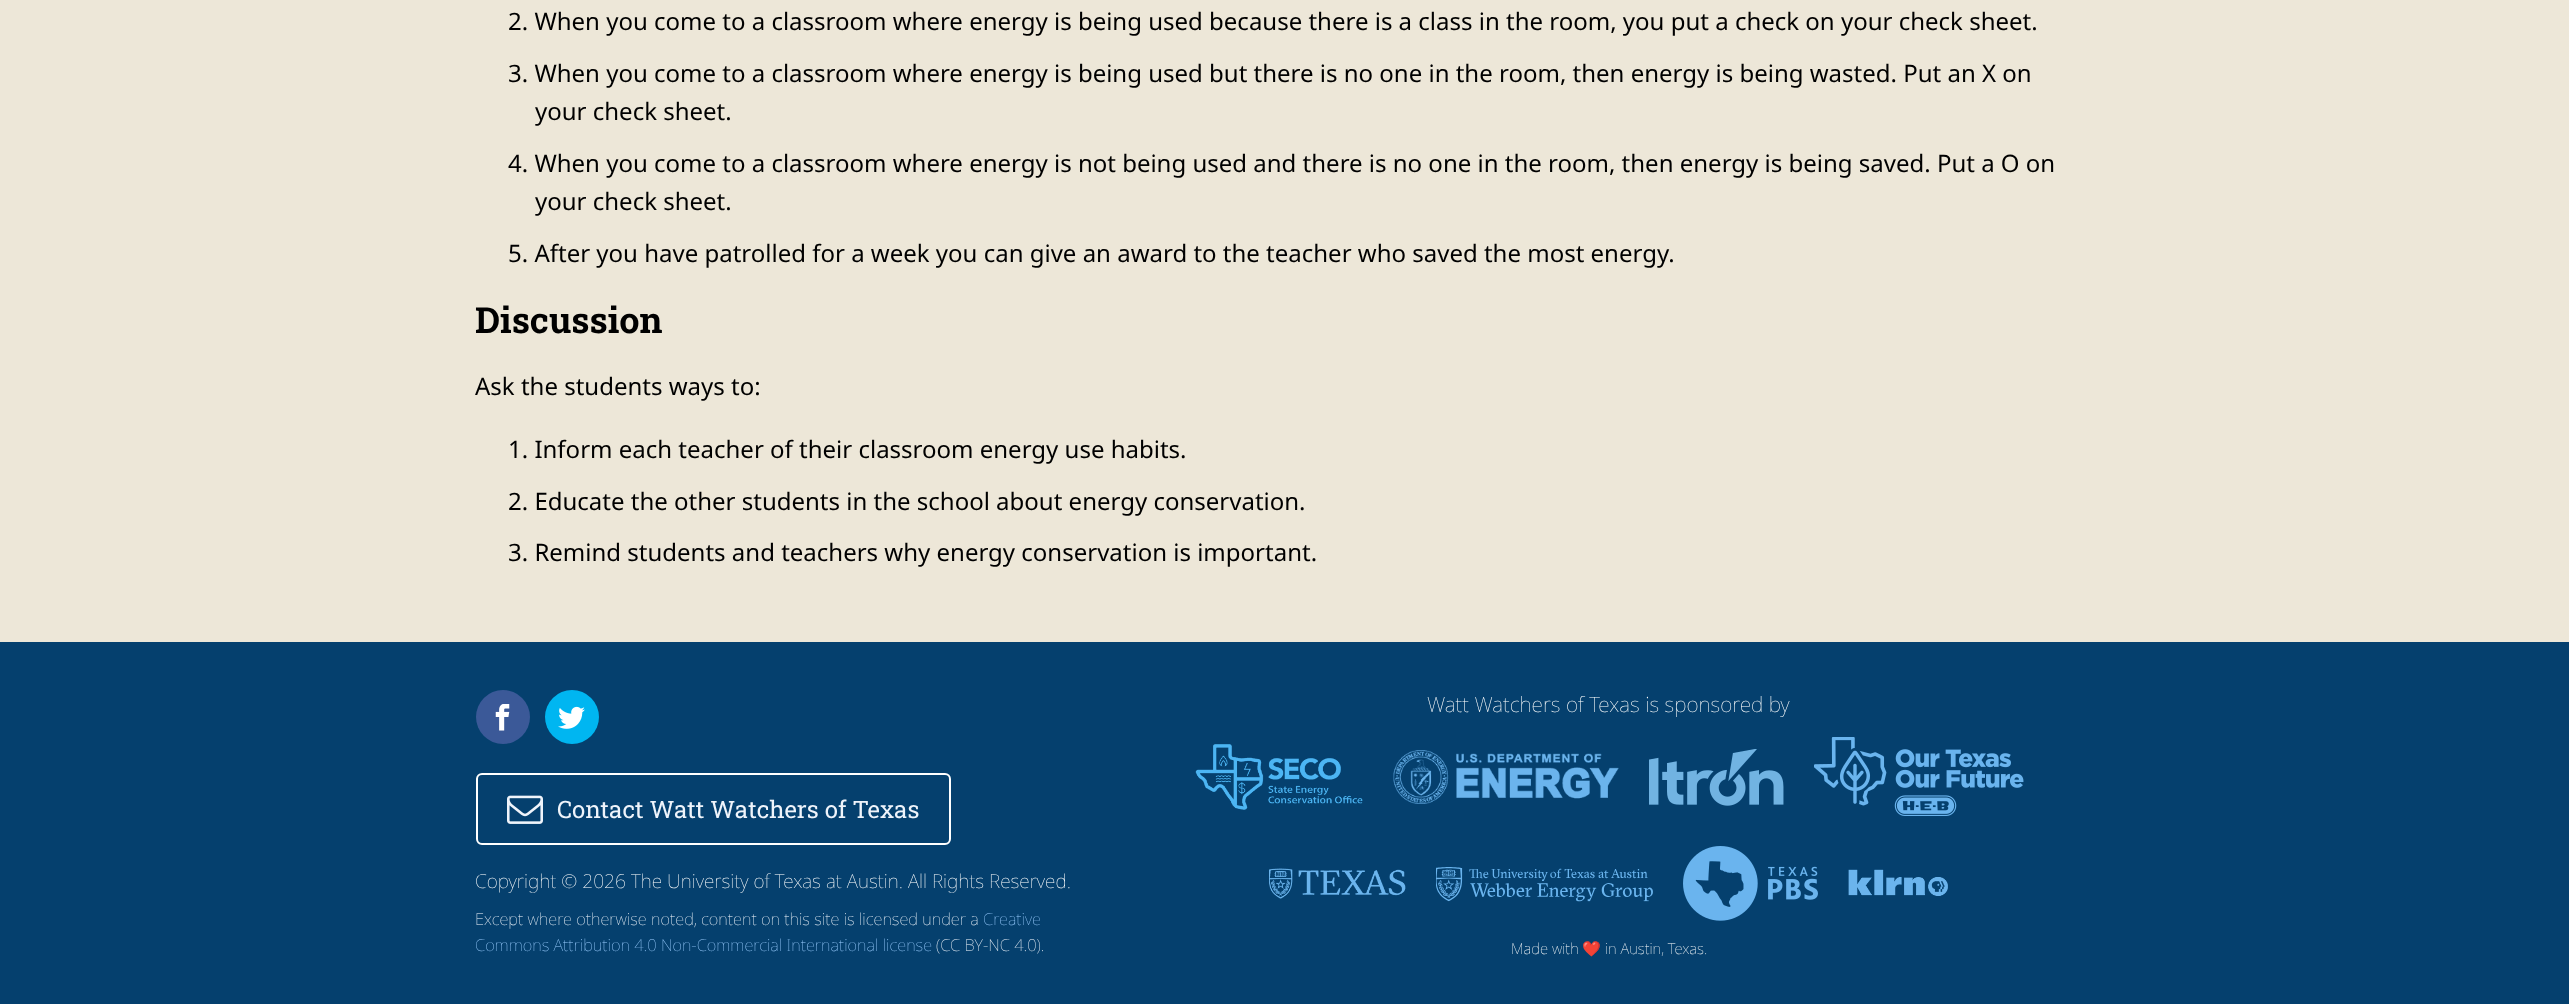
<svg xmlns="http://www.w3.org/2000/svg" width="2569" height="1004">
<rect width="100%" height="100%" fill="#ede7d8"/>
<text x="508" y="30" style="font-family:Noto Sans;font-size:24px;fill:#000">2. When you come to a classroom where energy is being used because there is a class in the room, you put a check on your check sheet.</text>
<text x="508" y="82" style="font-family:Noto Sans;font-size:24px;fill:#000">3. When you come to a classroom where energy is being used but there is no one in the room, then energy is being wasted. Put an X on</text>
<text x="535" y="120" style="font-family:Noto Sans;font-size:24px;fill:#000">your check sheet.</text>
<text x="508" y="172" style="font-family:Noto Sans;font-size:24px;fill:#000">4. When you come to a classroom where energy is not being used and there is no one in the room, then energy is being saved. Put a O on</text>
<text x="535" y="210" style="font-family:Noto Sans;font-size:24px;fill:#000">your check sheet.</text>
<text x="508" y="262" style="font-family:Noto Sans;font-size:24px;fill:#000">5. After you have patrolled for a week you can give an award to the teacher who saved the most energy.</text>
<text x="475" y="333" style="font-family:Roboto Slab;font-size:36px;font-weight:bold;fill:#000">Discussion</text>
<text x="475" y="395" style="font-family:Noto Sans;font-size:24px;fill:#000">Ask the students ways to:</text>
<text x="508" y="458" style="font-family:Noto Sans;font-size:24px;fill:#000">1. Inform each teacher of their classroom energy use habits.</text>
<text x="508" y="510" style="font-family:Noto Sans;font-size:24px;fill:#000">2. Educate the other students in the school about energy conservation.</text>
<text x="508" y="561" style="font-family:Noto Sans;font-size:24px;fill:#000">3. Remind students and teachers why energy conservation is important.</text>
<rect y="642" width="2569" height="362" fill="#05406e"/>
<circle cx="503" cy="717" r="27" fill="#3b5998"/>
<image x="495" y="704" width="15" height="27" href="media/1.png"/>
<circle cx="572" cy="717" r="27" fill="#00b6f1"/>
<image x="558" y="706" width="27" height="23" href="media/2.png"/>
<rect x="477" y="774" width="473" height="70" rx="5" fill="none" stroke="#fff" stroke-width="2"/>
<image x="507" y="795" width="36" height="29" href="media/3.png"/>
<text x="557" y="818" style="font-family:Roboto Slab;font-size:24px;fill:#eff4fb">Contact Watt Watchers of Texas</text>
<text x="475" y="888" style="font-family:Noto Sans;font-size:19.2px;font-weight:100;fill:#fff">Copyright © 2026 The University of Texas at Austin. All Rights Reserved.</text>
<text x="475" y="925" style="font-family:Noto Sans;font-size:16.5px;font-weight:100;fill:#eff4fb">Except where otherwise noted, content on this site is licensed under a</text>
<text x="983" y="925" style="font-family:Noto Sans;font-size:16.5px;font-weight:100;fill:#9cf">Creative</text>
<text x="475" y="951" style="font-family:Noto Sans;font-size:16.5px;font-weight:100;fill:#9cf">Commons Attribution 4.0 Non-Commercial International license</text>
<text x="936" y="951" style="font-family:Noto Sans;font-size:16.5px;font-weight:100;fill:#eff4fb">(CC BY-NC 4.0).</text>
<text x="1427" y="712" style="font-family:Noto Sans;font-size:21px;font-weight:100;fill:#fff">Watt Watchers of Texas is sponsored by</text>
<image x="1195" y="744" width="168" height="66" href="media/4.png"/>
<image x="1393" y="750" width="226" height="54" href="media/5.png"/>
<image x="1649" y="749" width="135" height="57" href="media/6.png"/>
<image x="1814" y="737" width="210" height="79" href="media/7.png"/>
<image x="1269" y="868" width="137" height="31" href="media/8.png"/>
<image x="1436" y="867" width="217" height="35" href="media/9.png"/>
<image x="1683" y="846" width="135" height="75" href="media/10.png"/>
<image x="1848" y="869" width="100" height="27" href="media/11.png"/>
<text x="1511" y="954" style="font-family:Noto Sans;font-size:15px;font-weight:100;fill:#fff">Made with</text>
<text x="1582" y="954" style="font-family:Noto Color Emoji;font-size:15px;fill:#fff">❤️</text>
<text x="1605" y="954" style="font-family:Noto Sans;font-size:15px;font-weight:100;fill:#fff">in Austin, Texas.</text>
</svg>
